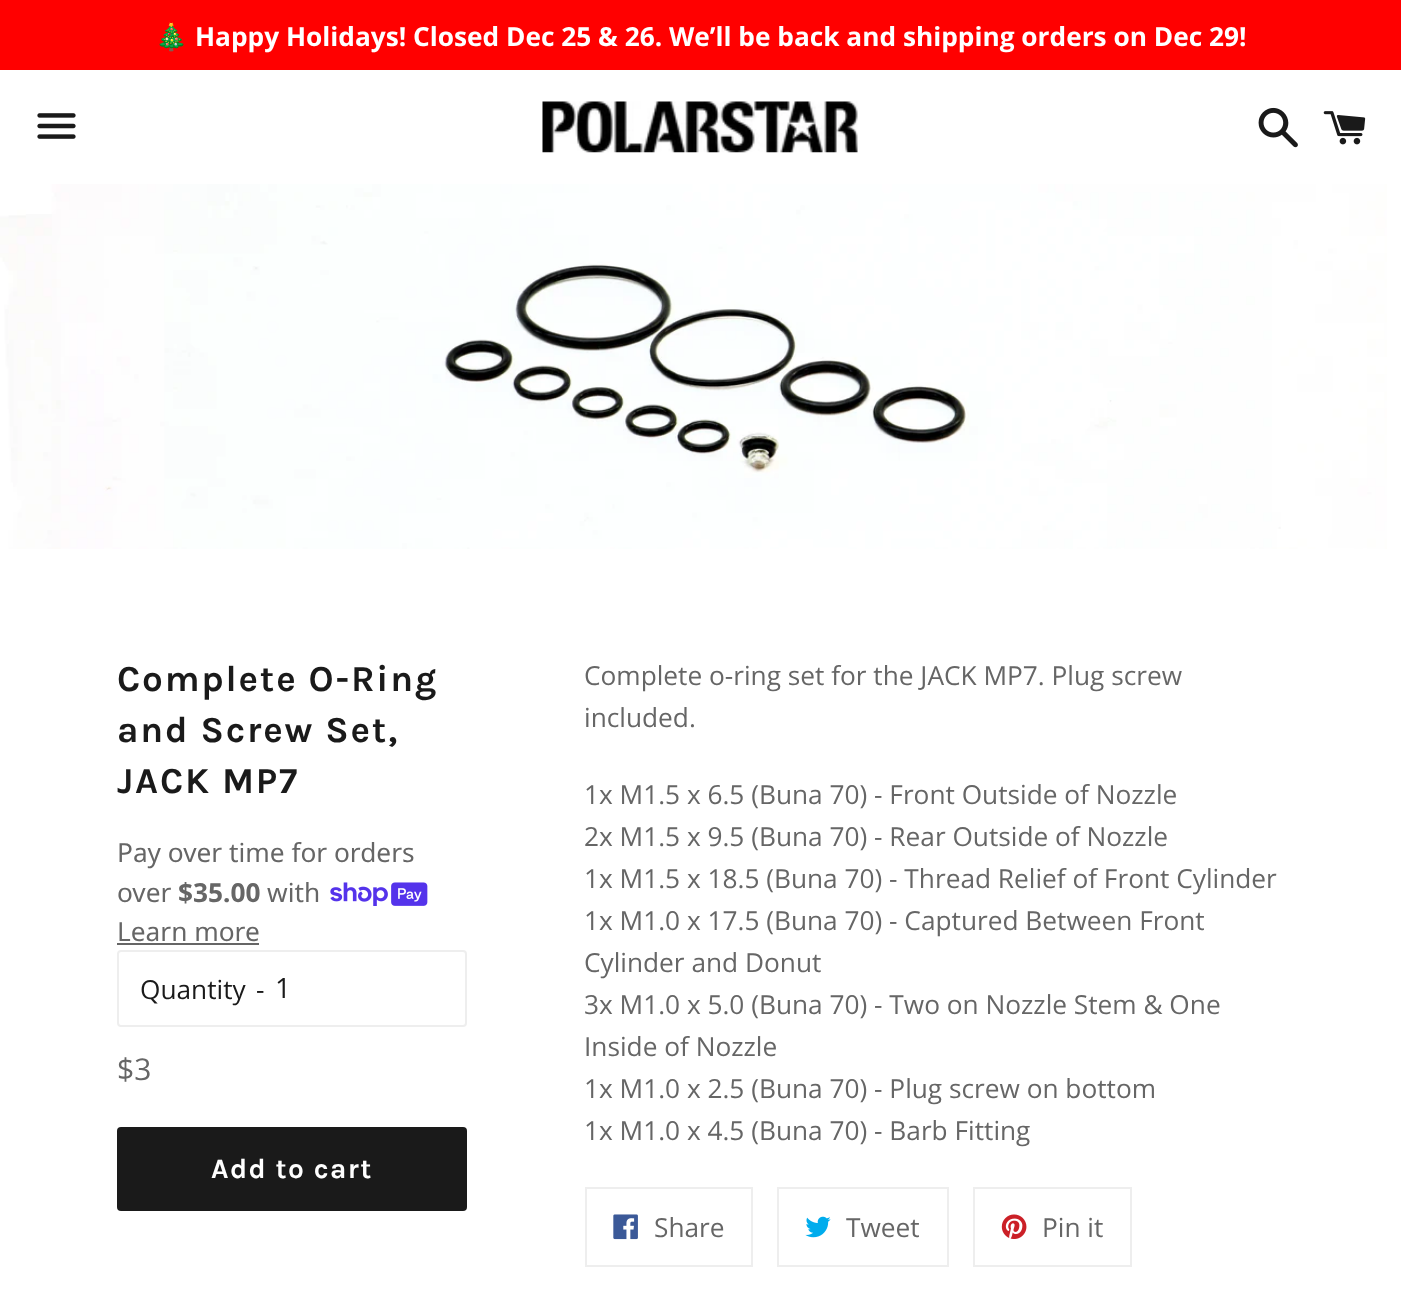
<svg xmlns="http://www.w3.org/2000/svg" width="1401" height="1295">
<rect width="100%" height="100%" fill="#fff"/>
<rect width="1401" height="70" fill="#f00"/>
<text x="155" y="46" style="font-family:Noto Color Emoji;font-size:26.25px;font-weight:bold;fill:#fff">🎄</text>
<text x="195" y="46" style="font-family:Open Sans;font-size:26.25px;font-weight:bold;fill:#fff">Happy Holidays! Closed Dec 25 &amp; 26. We’ll be back and shipping orders on Dec 29!</text>
<image x="37" y="113" width="39" height="26" href="media/1.png"/>
<image x="542" y="101" width="316" height="52" href="media/2.png"/>
<image x="1258" y="107" width="40" height="41" href="media/3.png"/>
<image x="1323" y="111" width="43" height="34" href="media/4.png"/>
<image x="0" y="184" width="1387" height="365" href="media/5.png"/>
<text x="117" y="691" style="font-family:Karla;font-size:36.75px;font-weight:bold;letter-spacing:1.8px;fill:#1a1a1a">Complete O-Ring</text>
<text x="117" y="742" style="font-family:Karla;font-size:36.75px;font-weight:bold;letter-spacing:1.8px;fill:#1a1a1a">and Screw Set,</text>
<text x="117" y="793" style="font-family:Karla;font-size:36.75px;font-weight:bold;letter-spacing:1.8px;fill:#1a1a1a">JACK MP7</text>
<text x="117" y="862" style="font-family:Noto Sans;font-size:26.25px;fill:#666">Pay over time for orders</text>
<text x="117" y="902" style="font-family:Noto Sans;font-size:26.25px;fill:#666">over</text>
<text x="178" y="902" style="font-family:Noto Sans;font-size:26.25px;font-weight:bold;fill:#666">$35.00</text>
<text x="267" y="902" style="font-family:Noto Sans;font-size:26.25px;fill:#666">with</text>
<image x="330" y="882" width="98" height="24" href="media/6.png"/>
<text x="117" y="941" style="font-family:Noto Sans;font-size:26.25px;fill:#666">Learn more</text>
<rect x="117" y="943" width="142" height="2" fill="#666"/>
<rect x="118" y="951" width="348" height="75" rx="3" fill="none" stroke="#eee" stroke-width="2"/>
<text x="140" y="999" style="font-family:Open Sans;font-size:26.25px;fill:#1a1a1a">Quantity</text>
<text x="256" y="999" style="font-family:Open Sans;font-size:26.25px;fill:#1a1a1a">-</text>
<text x="275" y="998" style="font-family:Open Sans;font-size:28px;fill:#1a1a1a">1</text>
<text x="117" y="1080" style="font-family:Open Sans;font-size:30px;fill:#666">$3</text>
<rect x="117" y="1127" width="350" height="84" rx="4" fill="#1a1a1a"/>
<text x="211" y="1178" style="font-family:Karla;font-size:28px;font-weight:bold;letter-spacing:1.4px;fill:#fff">Add to cart</text>
<text x="584" y="685" style="font-family:Open Sans;font-size:26.25px;fill:#666">Complete o-ring set for the JACK MP7. Plug screw</text>
<text x="584" y="727" style="font-family:Open Sans;font-size:26.25px;fill:#666">included.</text>
<text x="584" y="804" style="font-family:Open Sans;font-size:26.25px;fill:#666">1x M1.5 x 6.5 (Buna 70) - Front Outside of Nozzle</text>
<text x="584" y="846" style="font-family:Open Sans;font-size:26.25px;fill:#666">2x M1.5 x 9.5 (Buna 70) - Rear Outside of Nozzle</text>
<text x="584" y="888" style="font-family:Open Sans;font-size:26.25px;fill:#666">1x M1.5 x 18.5 (Buna 70) - Thread Relief of Front Cylinder</text>
<text x="584" y="930" style="font-family:Open Sans;font-size:26.25px;fill:#666">1x M1.0 x 17.5 (Buna 70) - Captured Between Front</text>
<text x="584" y="972" style="font-family:Open Sans;font-size:26.25px;fill:#666">Cylinder and Donut</text>
<text x="584" y="1014" style="font-family:Open Sans;font-size:26.25px;fill:#666">3x M1.0 x 5.0 (Buna 70) - Two on Nozzle Stem &amp; One</text>
<text x="584" y="1056" style="font-family:Open Sans;font-size:26.25px;fill:#666">Inside of Nozzle</text>
<text x="584" y="1098" style="font-family:Open Sans;font-size:26.25px;fill:#666">1x M1.0 x 2.5 (Buna 70) - Plug screw on bottom</text>
<text x="584" y="1140" style="font-family:Open Sans;font-size:26.25px;fill:#666">1x M1.0 x 4.5 (Buna 70) - Barb Fitting</text>
<rect x="586" y="1188" width="166" height="78" fill="none" stroke="#eee" stroke-width="2"/>
<image x="613" y="1214" width="25" height="26" href="media/7.png"/>
<text x="654" y="1237" style="font-family:Open Sans;font-size:26.25px;fill:#666">Share</text>
<rect x="778" y="1188" width="170" height="78" fill="none" stroke="#eee" stroke-width="2"/>
<image x="805" y="1216" width="26" height="22" href="media/8.png"/>
<text x="846" y="1237" style="font-family:Open Sans;font-size:26.25px;fill:#666">Tweet</text>
<rect x="974" y="1188" width="157" height="78" fill="none" stroke="#eee" stroke-width="2"/>
<image x="1001" y="1214" width="26" height="25" href="media/9.png"/>
<text x="1042" y="1237" style="font-family:Open Sans;font-size:26.25px;fill:#666">Pin it</text>
</svg>
